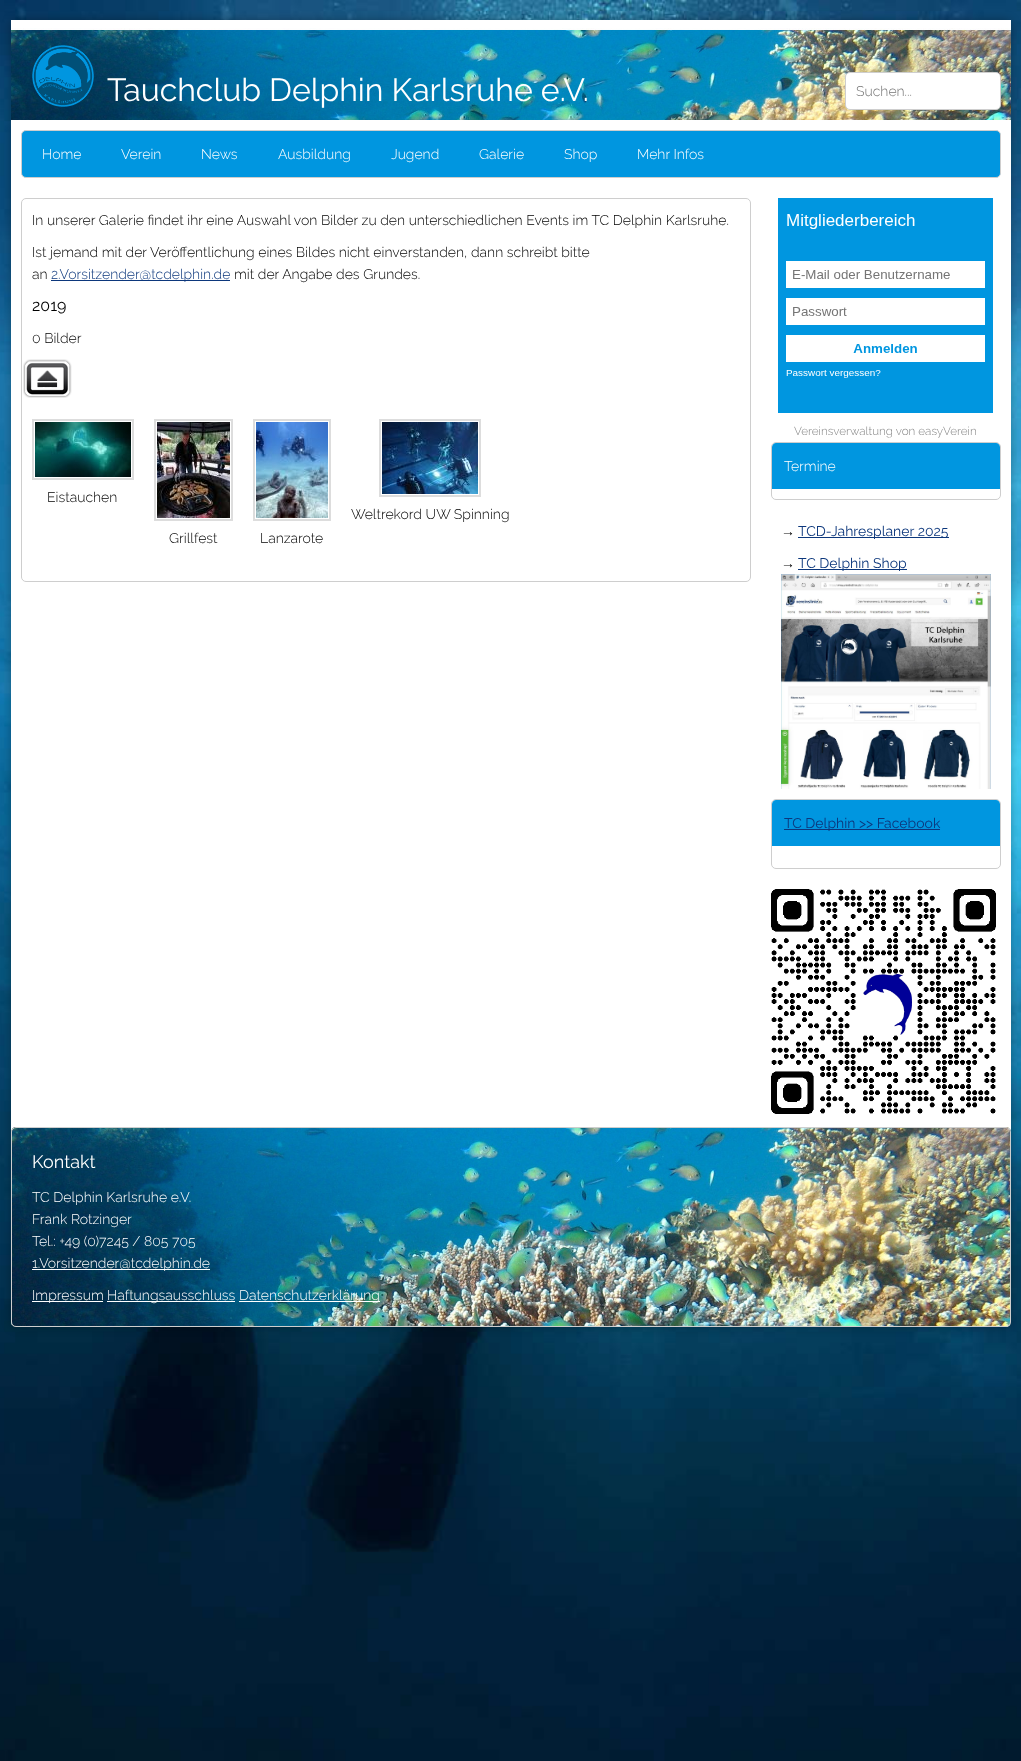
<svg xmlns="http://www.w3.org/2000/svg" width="1021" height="1761">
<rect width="100%" height="100%" fill="#fff"/>
<image x="0" y="0" width="1021" height="1761" href="media/1.png"/>
<rect x="11" y="20" width="1000" height="1307" rx="5" fill="#0000004d" filter="blur(5px)"/>
<rect x="11" y="20" width="1000" height="1307" rx="5" fill="#fff"/>
<image x="11" y="20" width="1000" height="100" href="media/2.png"/>
<image x="32" y="45" width="62" height="62" href="media/3.png"/>
<text x="107" y="101" style="font-family:Raleway;font-size:32px;fill:#fff">Tauchclub Delphin Karlsruhe e.V.</text>
<rect x="845.5" y="72.5" width="155" height="37" rx="4.5" fill="#fff" stroke="#cecece"/>
<text x="856" y="96" style="font-family:Raleway;font-size:14px;font-weight:300;fill:#757575">Suchen...</text>
<rect x="21.5" y="130.5" width="979" height="47" rx="4.5" fill="#0096e0" stroke="#cecece"/>
<text x="42" y="159" style="font-family:Raleway;font-size:14px;font-weight:300;fill:#fff">Home</text>
<text x="121" y="159" style="font-family:Raleway;font-size:14px;font-weight:300;fill:#fff">Verein</text>
<text x="201" y="159" style="font-family:Raleway;font-size:14px;font-weight:300;fill:#fff">News</text>
<text x="278" y="159" style="font-family:Raleway;font-size:14px;font-weight:300;fill:#fff">Ausbildung</text>
<text x="391" y="159" style="font-family:Raleway;font-size:14px;font-weight:300;fill:#fff">Jugend</text>
<text x="479" y="159" style="font-family:Raleway;font-size:14px;font-weight:300;fill:#fff">Galerie</text>
<text x="564" y="159" style="font-family:Raleway;font-size:14px;font-weight:300;fill:#fff">Shop</text>
<text x="637" y="159" style="font-family:Raleway;font-size:14px;font-weight:300;fill:#fff">Mehr Infos</text>
<rect x="21.5" y="198.5" width="729" height="383" rx="4.5" fill="none" stroke="#cecece"/>
<text x="32" y="225" style="font-family:Raleway;font-size:14px;font-weight:300;fill:#000">In unserer Galerie findet ihr eine Auswahl von Bilder zu den unterschiedlichen Events im TC Delphin Karlsruhe.</text>
<text x="32" y="257" style="font-family:Raleway;font-size:14px;font-weight:300;fill:#000">Ist jemand mit der Veröffentlichung eines Bildes nicht einverstanden, dann schreibt bitte</text>
<text x="32" y="279" style="font-family:Raleway;font-size:14px;font-weight:300;fill:#000">an</text>
<rect x="51" y="280" width="179" height="1" fill="#0c377c"/>
<text x="51" y="279" style="font-family:Raleway;font-size:14px;font-weight:300;fill:#0c377c">2.Vorsitzender@tcdelphin.de</text>
<text x="234" y="279" style="font-family:Raleway;font-size:14px;font-weight:300;fill:#000">mit der Angabe des Grundes.</text>
<text x="32" y="311" style="font-family:Raleway;font-size:16px;fill:#000">2019</text>
<text x="32" y="343" style="font-family:Raleway;font-size:14px;font-weight:300;fill:#000">0 Bilder</text>
<image x="23" y="359" width="49" height="39" href="media/4.png"/>
<rect x="33" y="420" width="100" height="59" fill="none" stroke="#ddd" stroke-width="2"/>
<image x="35" y="422" width="96" height="55" href="media/5.png"/>
<text x="47" y="502" style="font-family:Raleway;font-size:14px;font-weight:300;fill:#000">Eistauchen</text>
<rect x="380" y="420" width="100" height="76" fill="none" stroke="#ddd" stroke-width="2"/>
<image x="382" y="422" width="96" height="72" href="media/6.png"/>
<text x="351" y="519" style="font-family:Raleway;font-size:14px;font-weight:300;fill:#000">Weltrekord UW Spinning</text>
<rect x="155" y="420" width="77" height="100" fill="none" stroke="#ddd" stroke-width="2"/>
<image x="157" y="422" width="73" height="96" href="media/7.png"/>
<text x="169" y="543" style="font-family:Raleway;font-size:14px;font-weight:300;fill:#000">Grillfest</text>
<rect x="254" y="420" width="76" height="100" fill="none" stroke="#ddd" stroke-width="2"/>
<image x="256" y="422" width="72" height="96" href="media/8.png"/>
<text x="260" y="543" style="font-family:Raleway;font-size:14px;font-weight:300;fill:#000">Lanzarote</text>
<image x="778" y="198" width="215" height="215" href="media/9.png"/>
<text x="794" y="435" style="font-family:Raleway;font-size:11.7px;font-weight:300;fill:#878787">Vereinsverwaltung von easyVerein</text>
<rect x="771.5" y="442.5" width="229" height="57" rx="4.5" fill="none" stroke="#cecece"/>
<path d="M776 443h220c2 0 4 2 4 4v42h-228v-42c0-2 2-4 4-4z" fill="#0096e0"/>
<text x="784" y="471" style="font-family:Raleway;font-size:14px;font-weight:300;fill:#fff">Termine</text>
<text x="781" y="536" style="font-family:Liberation Sans;font-size:14px;fill:#000">→</text>
<rect x="798" y="537" width="151" height="1" fill="#0c377c"/>
<text x="798" y="536" style="font-family:Raleway;font-size:14px;fill:#0c377c">TCD-Jahresplaner 2025</text>
<text x="781" y="568" style="font-family:Liberation Sans;font-size:14px;fill:#000">→</text>
<rect x="798" y="569" width="109" height="1" fill="#0c377c"/>
<text x="798" y="568" style="font-family:Raleway;font-size:14px;fill:#0c377c">TC Delphin Shop</text>
<image x="781" y="574" width="210" height="215" href="media/10.png"/>
<rect x="771.5" y="799.5" width="229" height="69" rx="4.5" fill="none" stroke="#cecece"/>
<path d="M776 800h220c2 0 4 2 4 4v42h-228v-42c0-2 2-4 4-4z" fill="#0096e0"/>
<rect x="784" y="829" width="156" height="1" fill="#0c377c"/>
<text x="784" y="828" style="font-family:Raleway;font-size:14px;fill:#0c377c">TC Delphin &gt;&gt; Facebook</text>
<image x="771" y="889" width="225" height="225" href="media/11.png"/>
<image x="11" y="1127" width="1000" height="200" href="media/12.png"/>
<rect x="11.5" y="1127.5" width="999" height="199" rx="4.5" fill="none" stroke="#cecece"/>
<text x="32" y="1168" style="font-family:Raleway;font-size:18px;fill:#fff">Kontakt</text>
<text x="32" y="1202" style="font-family:Raleway;font-size:14px;font-weight:300;fill:#fff">TC Delphin Karlsruhe e.V.</text>
<text x="32" y="1224" style="font-family:Raleway;font-size:14px;font-weight:300;fill:#fff">Frank Rotzinger</text>
<text x="32" y="1246" style="font-family:Raleway;font-size:14px;font-weight:300;fill:#fff">Tel.: +49 (0)7245 / 805 705</text>
<rect x="32" y="1269" width="178" height="1" fill="#fff"/>
<text x="32" y="1268" style="font-family:Raleway;font-size:14px;font-weight:300;fill:#fff">1.Vorsitzender@tcdelphin.de</text>
<rect x="32" y="1301" width="71" height="1" fill="#fff"/>
<text x="32" y="1300" style="font-family:Raleway;font-size:14px;font-weight:300;fill:#fff">Impressum</text>
<rect x="107" y="1301" width="128" height="1" fill="#fff"/>
<text x="107" y="1300" style="font-family:Raleway;font-size:14px;font-weight:300;fill:#fff">Haftungsausschluss</text>
<rect x="239" y="1301" width="141" height="1" fill="#fff"/>
<text x="239" y="1300" style="font-family:Raleway;font-size:14px;font-weight:300;fill:#fff">Datenschutzerklärung</text>
</svg>
